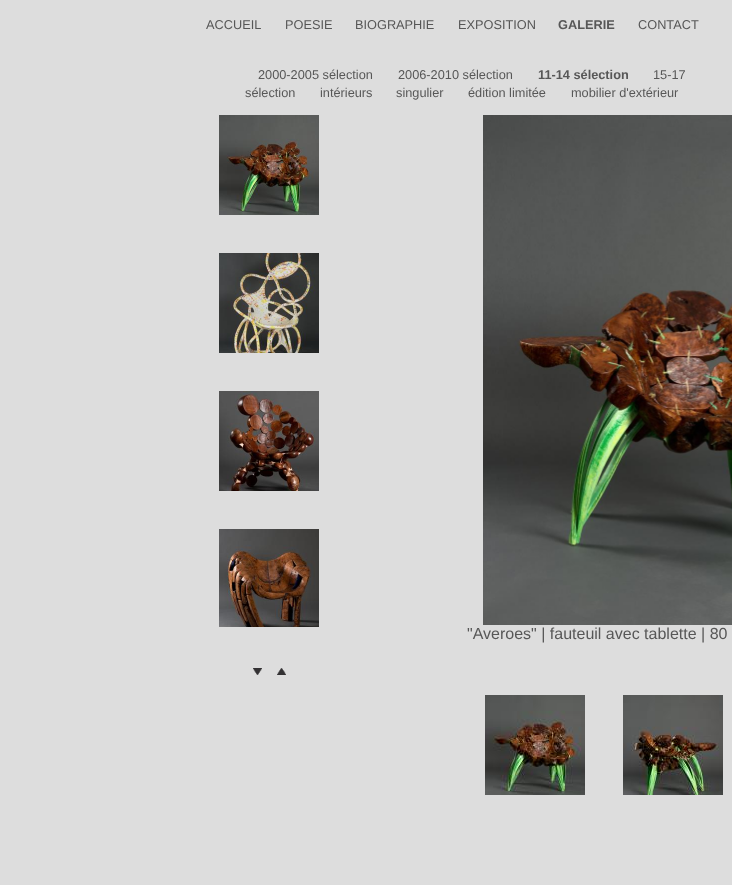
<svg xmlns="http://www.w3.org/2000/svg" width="732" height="885">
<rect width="100%" height="100%" fill="#ddd"/>
<text x="206" y="29" style="font-family:Liberation Sans;font-size:12.75px;fill:#575757">ACCUEIL</text>
<text x="285" y="29" style="font-family:Liberation Sans;font-size:12.75px;fill:#575757">POESIE</text>
<text x="355" y="29" style="font-family:Liberation Sans;font-size:12.75px;fill:#575757">BIOGRAPHIE</text>
<text x="458" y="29" style="font-family:Liberation Sans;font-size:12.75px;fill:#575757">EXPOSITION</text>
<text x="558" y="29" style="font-family:Liberation Sans;font-size:12.75px;font-weight:bold;fill:#575757">GALERIE</text>
<text x="638" y="29" style="font-family:Liberation Sans;font-size:12.75px;fill:#575757">CONTACT</text>
<text x="258" y="79" style="font-family:Liberation Sans;font-size:12.75px;fill:#575757">2000-2005 sélection</text>
<text x="398" y="79" style="font-family:Liberation Sans;font-size:12.75px;fill:#575757">2006-2010 sélection</text>
<text x="538" y="79" style="font-family:Liberation Sans;font-size:12.75px;font-weight:bold;fill:#575757">11-14 sélection</text>
<text x="653" y="79" style="font-family:Liberation Sans;font-size:12.75px;fill:#575757">15-17</text>
<text x="245" y="97" style="font-family:Liberation Sans;font-size:12.75px;fill:#575757">sélection</text>
<text x="320" y="97" style="font-family:Liberation Sans;font-size:12.75px;fill:#575757">intérieurs</text>
<text x="396" y="97" style="font-family:Liberation Sans;font-size:12.75px;fill:#575757">singulier</text>
<text x="468" y="97" style="font-family:Liberation Sans;font-size:12.75px;fill:#575757">édition limitée</text>
<text x="571" y="97" style="font-family:Liberation Sans;font-size:12.75px;fill:#575757">mobilier d'extérieur</text>
<image x="219" y="115" width="100" height="100" href="media/1.png"/>
<image x="219" y="253" width="100" height="100" href="media/2.png"/>
<image x="219" y="391" width="100" height="100" href="media/3.png"/>
<image x="219" y="529" width="100" height="98" href="media/4.png"/>
<image x="253" y="668" width="9" height="7" href="media/5.png"/>
<image x="277" y="668" width="9" height="7" href="media/6.png"/>
<image x="483" y="115" width="249" height="510" href="media/7.png"/>
<text x="467" y="639" style="font-family:Liberation Sans;font-size:16px;fill:#575757">"Averoes" | fauteuil avec tablette | 80</text>
<image x="485" y="695" width="100" height="100" href="media/8.png"/>
<image x="623" y="695" width="100" height="100" href="media/9.png"/>
</svg>
